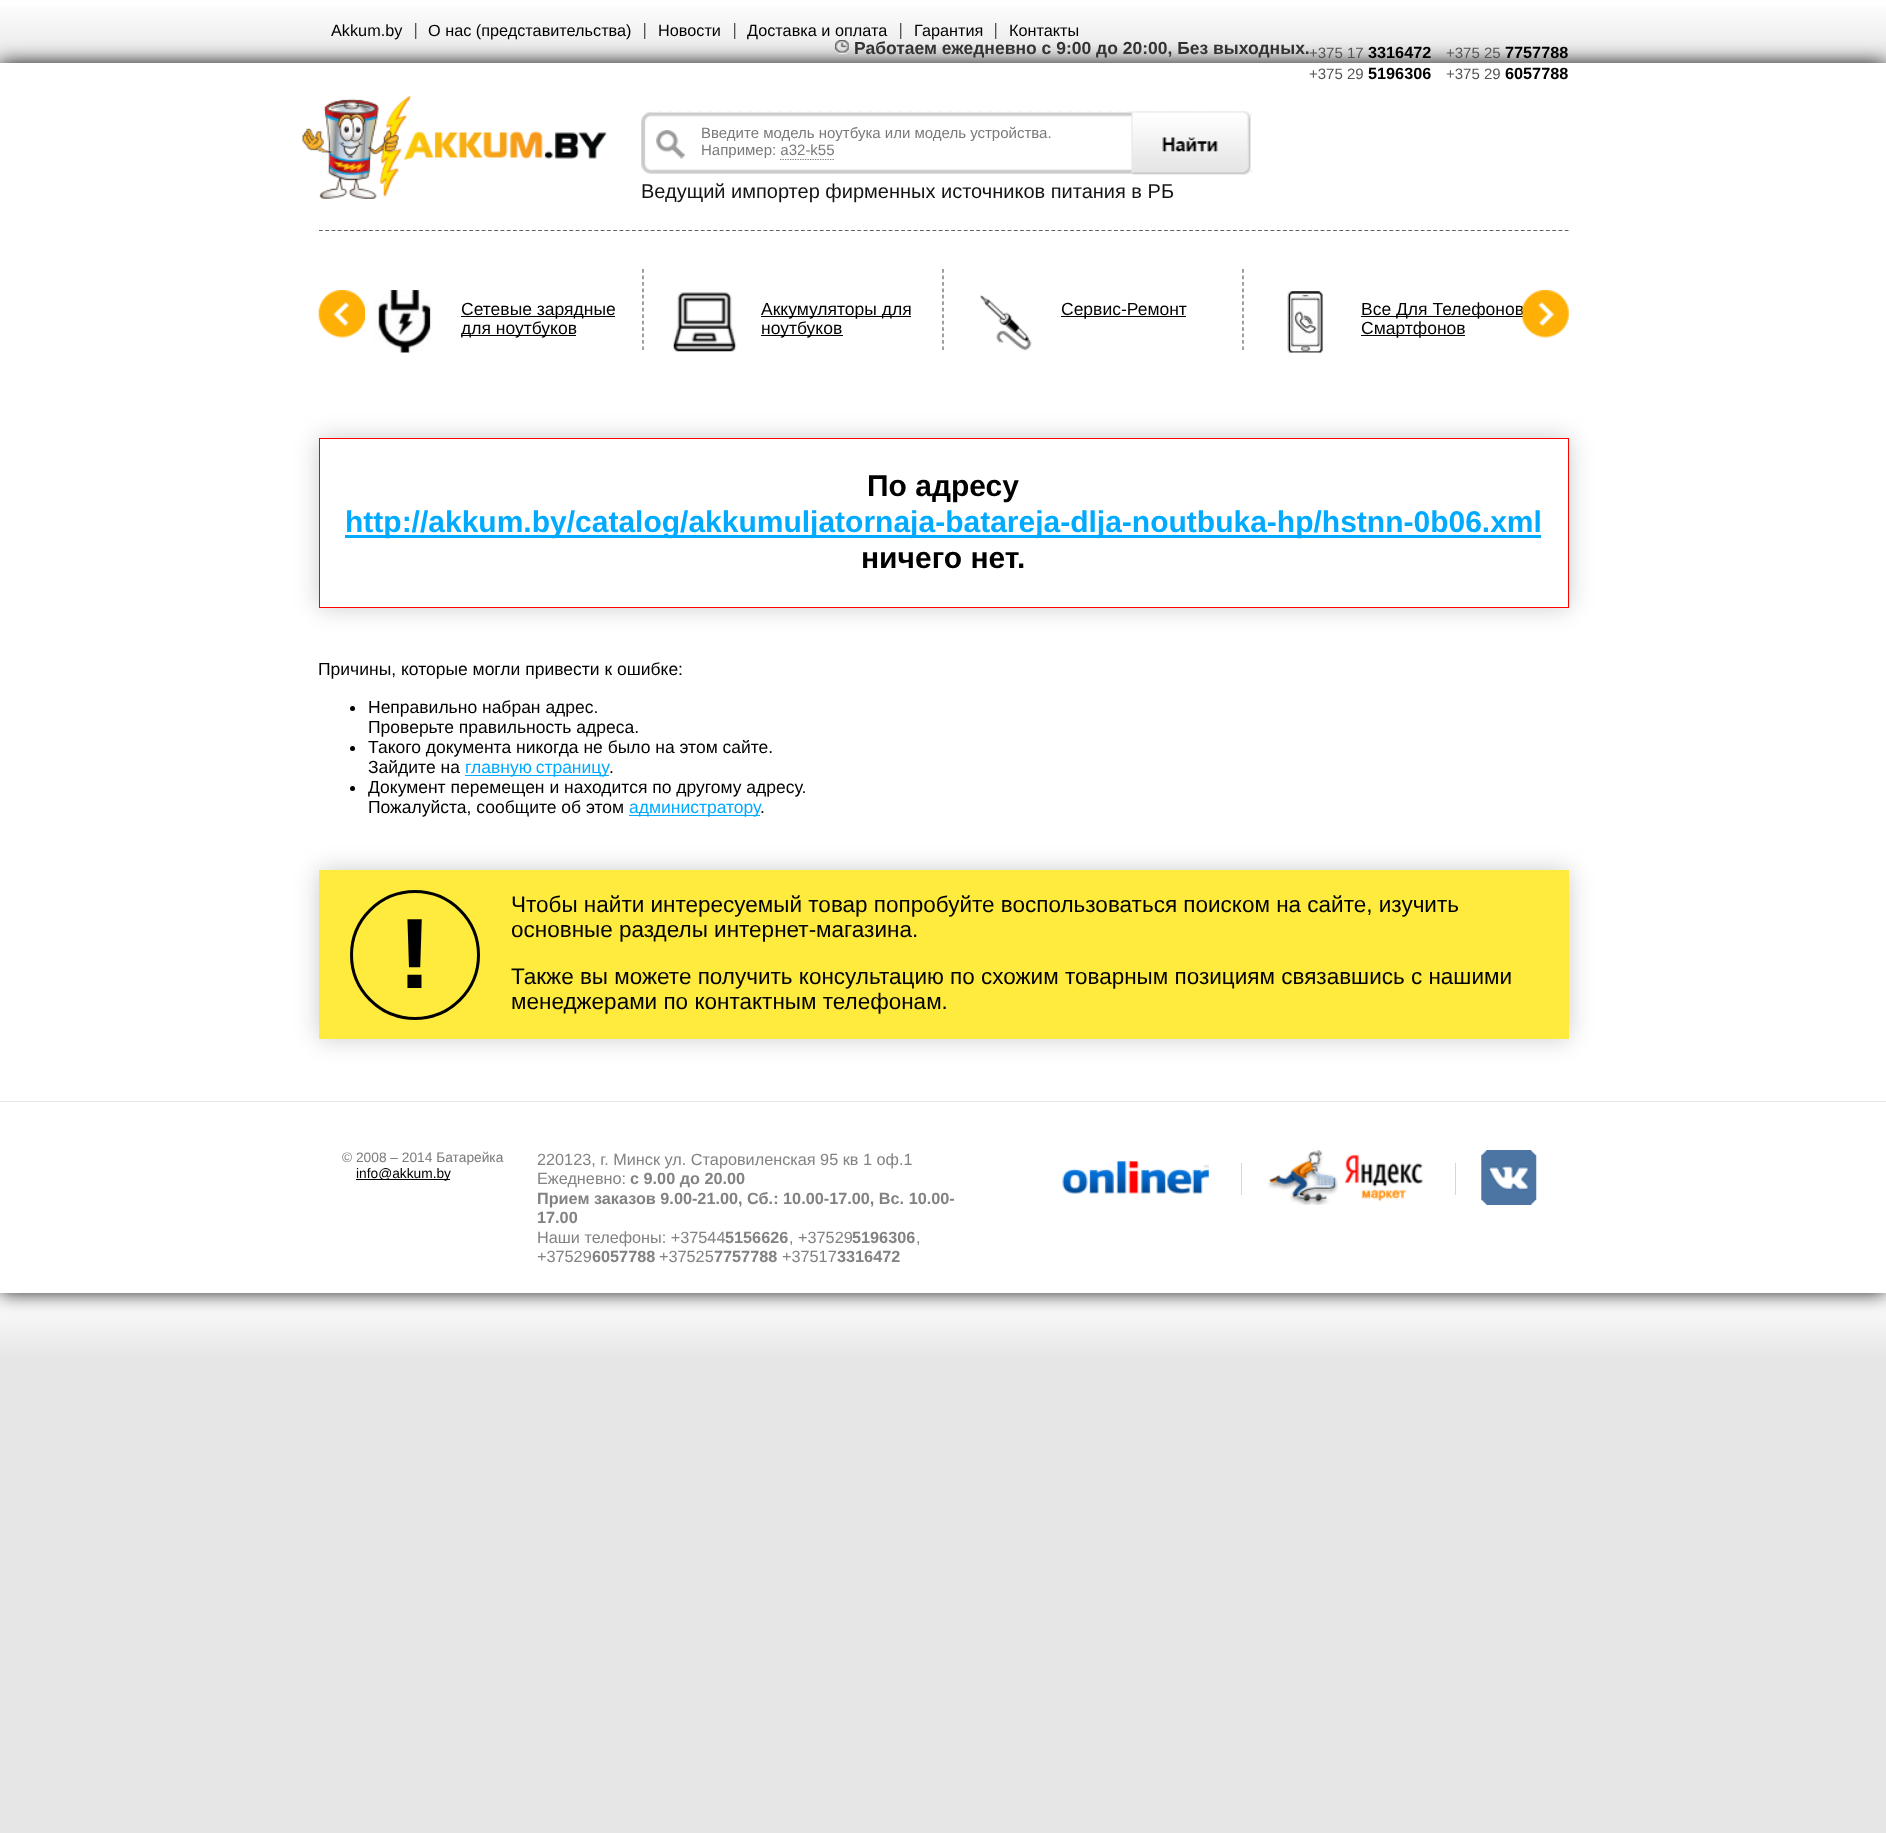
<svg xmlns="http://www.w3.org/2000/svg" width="1886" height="1833">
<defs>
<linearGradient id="g1" gradientUnits="userSpaceOnUse" x1="943" y1="0" x2="943" y2="1293"><stop offset="0" stop-color="#fff"/><stop offset="0.05" stop-color="#e6e6e6"/></linearGradient>
<linearGradient id="g2" gradientUnits="userSpaceOnUse" x1="943" y1="1293" x2="943" y2="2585"><stop offset="0" stop-color="#fff"/><stop offset="0.05" stop-color="#e6e6e6"/></linearGradient>
<clipPath id="clip1"><path d="M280 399h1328v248h-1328zm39 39h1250v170h-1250z" clip-rule="evenodd"/></clipPath>
</defs>
<rect width="100%" height="100%" fill="#fff"/>
<rect y="6" width="1886" height="57" fill="url(#g1)"/>
<rect y="1299" width="1886" height="534" fill="url(#g2)"/>
<rect y="63" width="1886" height="1230" fill="#000000e6" filter="blur(9.5px)"/>
<text x="331" y="36" style="font-family:Liberation Sans;font-size:16.25px;fill:#000">Akkum.by</text>
<rect x="416" y="23" width="1" height="16" fill="#bbb"/>
<rect x="415" y="23" width="1" height="16" fill="#555"/>
<text x="428" y="36" style="font-family:Liberation Sans;font-size:16.25px;fill:#000">О нас (представительства)</text>
<rect x="645" y="23" width="1" height="16" fill="#bbb"/>
<rect x="644" y="23" width="1" height="16" fill="#555"/>
<text x="658" y="36" style="font-family:Liberation Sans;font-size:16.25px;fill:#000">Новости</text>
<rect x="735" y="23" width="1" height="16" fill="#bbb"/>
<rect x="734" y="23" width="1" height="16" fill="#555"/>
<text x="747" y="36" style="font-family:Liberation Sans;font-size:16.25px;fill:#000">Доставка и оплата</text>
<rect x="901" y="23" width="1" height="16" fill="#bbb"/>
<rect x="900" y="23" width="1" height="16" fill="#555"/>
<text x="914" y="36" style="font-family:Liberation Sans;font-size:16.25px;fill:#000">Гарантия</text>
<rect x="996" y="23" width="1" height="16" fill="#bbb"/>
<rect x="995" y="23" width="1" height="16" fill="#555"/>
<text x="1009" y="36" style="font-family:Liberation Sans;font-size:16.25px;fill:#000">Контакты</text>
<image x="835" y="40" width="14" height="14" href="media/1.png"/>
<text x="854" y="54" style="font-family:Liberation Sans;font-size:17.5px;font-weight:bold;fill:#333">Работаем ежедневно с 9:00 до 20:00, Без выходных.</text>
<text x="1309" y="58" style="font-family:Liberation Sans;font-size:15px;fill:#555">+375 17</text>
<text x="1368" y="58" style="font-family:Liberation Sans;font-size:16.25px;font-weight:bold;fill:#000">3316472</text>
<text x="1446" y="58" style="font-family:Liberation Sans;font-size:15px;fill:#555">+375 25</text>
<text x="1505" y="58" style="font-family:Liberation Sans;font-size:16.25px;font-weight:bold;fill:#000">7757788</text>
<rect y="63" width="1886" height="1230" fill="#fff"/>
<text x="1309" y="79" style="font-family:Liberation Sans;font-size:15px;fill:#555">+375 29</text>
<text x="1368" y="79" style="font-family:Liberation Sans;font-size:16.25px;font-weight:bold;fill:#000">5196306</text>
<text x="1446" y="79" style="font-family:Liberation Sans;font-size:15px;fill:#555">+375 29</text>
<text x="1505" y="79" style="font-family:Liberation Sans;font-size:16.25px;font-weight:bold;fill:#000">6057788</text>
<image x="302" y="96" width="305" height="103" href="media/2.png"/>
<image x="651" y="111" width="601" height="63" href="media/3.png"/>
<image x="641" y="111" width="11" height="63" href="media/4.png"/>
<image x="656" y="130" width="29" height="29" href="media/5.png"/>
<text x="701" y="138" style="font-family:Liberation Sans;font-size:15px;fill:#7a7a7a">Введите модель ноутбука или модель устройства.</text>
<text x="701" y="155" style="font-family:Liberation Sans;font-size:15px;fill:#7a7a7a">Например: a32-k55</text>
<path d="M780 159.5h55" fill="none" stroke="#777" stroke-width="1.2" stroke-dasharray="1.25 1.25"/>
<image x="1131" y="111" width="120" height="64" href="media/6.png"/>
<text x="641" y="198" style="font-family:Liberation Sans;font-size:20px;fill:#131313">Ведущий импортер фирменных источников питания в РБ</text>
<path d="M319 230.5h1250" fill="none" stroke="#606060" stroke-width="1.2" stroke-dasharray="3.75 2.51"/>
<image x="318" y="290" width="47" height="48" href="media/7.png"/>
<image x="374" y="290" width="59" height="63" href="media/8.png"/>
<rect x="461" y="316" width="154" height="1" fill="#000"/>
<text x="461" y="315" style="font-family:Liberation Sans;font-size:17.5px;fill:#000">Сетевые зарядные</text>
<rect x="461" y="335" width="115" height="1" fill="#000"/>
<text x="461" y="334" style="font-family:Liberation Sans;font-size:17.5px;fill:#000">для ноутбуков</text>
<path d="M643 269v81" fill="none" stroke="#606060" stroke-width="1.2" stroke-dasharray="3.75 2.71"/>
<image x="673" y="292" width="64" height="60" href="media/9.png"/>
<rect x="761" y="316" width="150" height="1" fill="#000"/>
<text x="761" y="315" style="font-family:Liberation Sans;font-size:17.5px;fill:#000">Аккумуляторы для</text>
<rect x="761" y="335" width="82" height="1" fill="#000"/>
<text x="761" y="334" style="font-family:Liberation Sans;font-size:17.5px;fill:#000">ноутбуков</text>
<path d="M943 269v81" fill="none" stroke="#606060" stroke-width="1.2" stroke-dasharray="3.75 2.71"/>
<image x="980" y="295" width="52" height="56" href="media/10.png"/>
<rect x="1061" y="316" width="125" height="1" fill="#000"/>
<text x="1061" y="315" style="font-family:Liberation Sans;font-size:17.5px;fill:#000">Сервис-Ремонт</text>
<path d="M1243 269v81" fill="none" stroke="#606060" stroke-width="1.2" stroke-dasharray="3.75 2.71"/>
<image x="1286" y="291" width="38" height="62" href="media/11.png"/>
<rect x="1361" y="316" width="168" height="1" fill="#000"/>
<text x="1361" y="315" style="font-family:Liberation Sans;font-size:17.5px;fill:#000">Все Для Телефонов</text>
<rect x="1361" y="335" width="104" height="1" fill="#000"/>
<text x="1361" y="334" style="font-family:Liberation Sans;font-size:17.5px;fill:#000">Смартфонов</text>
<image x="1522" y="290" width="47" height="48" href="media/12.png"/>
<g clip-path="url(#clip1)">
<rect x="319" y="438" width="1250" height="170" fill="#00000033" filter="blur(12.5px)"/>
</g>
<rect x="319.5" y="438.5" width="1249" height="169" fill="none" stroke="#f00"/>
<text x="867" y="496" style="font-family:Liberation Sans;font-size:30px;font-weight:bold;fill:#000">По адресу</text>
<rect x="345" y="535" width="1196" height="3" fill="#0af"/>
<text x="345" y="532" style="font-family:Liberation Sans;font-size:30px;font-weight:bold;fill:#0af">http://akkum.by/catalog/akkumuljatornaja-batareja-dlja-noutbuka-hp/hstnn-0b06.xml</text>
<text x="861" y="568" style="font-family:Liberation Sans;font-size:30px;font-weight:bold;fill:#000">ничего нет.</text>
<text x="318" y="675" style="font-family:Liberation Sans;font-size:17.5px;fill:#000">Причины, которые могли привести к ошибке:</text>
<circle cx="352.5" cy="708.5" r="2.5" fill="#000"/>
<text x="368" y="713" style="font-family:Liberation Sans;font-size:17.5px;fill:#000">Неправильно набран адрес.</text>
<text x="368" y="733" style="font-family:Liberation Sans;font-size:17.5px;fill:#000">Проверьте правильность адреса.</text>
<circle cx="352.5" cy="748.5" r="2.5" fill="#000"/>
<text x="368" y="753" style="font-family:Liberation Sans;font-size:17.5px;fill:#000">Такого документа никогда не было на этом сайте.</text>
<text x="368" y="773" style="font-family:Liberation Sans;font-size:17.5px;fill:#000">Зайдите на</text>
<rect x="465" y="775" width="144" height="1" fill="#0af"/>
<text x="465" y="773" word-spacing="-1" style="font-family:Liberation Sans;font-size:17.5px;fill:#0af">главную страницу</text>
<text x="609" y="773" style="font-family:Liberation Sans;font-size:17.5px;fill:#000">.</text>
<circle cx="352.5" cy="788.5" r="2.5" fill="#000"/>
<text x="368" y="793" style="font-family:Liberation Sans;font-size:17.5px;fill:#000">Документ перемещен и находится по другому адресу.</text>
<text x="368" y="813" style="font-family:Liberation Sans;font-size:17.5px;fill:#000">Пожалуйста, сообщите об этом</text>
<rect x="629" y="815" width="131" height="1" fill="#0af"/>
<text x="629" y="813" style="font-family:Liberation Sans;font-size:17.5px;fill:#0af">администратору</text>
<text x="760" y="813" style="font-family:Liberation Sans;font-size:17.5px;fill:#000">.</text>
<rect x="319" y="870" width="1250" height="169" fill="#00000033" filter="blur(12.5px)"/>
<rect x="319" y="870" width="1250" height="169" fill="#feeb3d"/>
<circle cx="415" cy="955" r="63.5" fill="none" stroke="#000" stroke-width="3"/>
<text x="398" y="988" style="font-family:Liberation Sans;font-size:100px;font-weight:bold;fill:#000">!</text>
<text x="511" y="912" style="font-family:Liberation Sans;font-size:22.5px;fill:#000">Чтобы найти интересуемый товар попробуйте воспользоваться поиском на сайте, изучить</text>
<text x="511" y="937" style="font-family:Liberation Sans;font-size:22.5px;fill:#000">основные разделы интернет-магазина.</text>
<text x="511" y="984" style="font-family:Liberation Sans;font-size:22.5px;fill:#000">Также вы можете получить консультацию по схожим товарным позициям связавшись с нашими</text>
<text x="511" y="1009" style="font-family:Liberation Sans;font-size:22.5px;fill:#000">менеджерами по контактным телефонам.</text>
<rect y="1101" width="1886" height="1" fill="#e6e6e6"/>
<text x="342" y="1162" style="font-family:Liberation Sans;font-size:13.75px;fill:#7a7a7a">© 2008 – 2014 Батарейка</text>
<rect x="356" y="1179" width="94" height="1" fill="#000"/>
<text x="356" y="1178" style="font-family:Liberation Sans;font-size:13.75px;fill:#000">info@akkum.by</text>
<text x="537" y="1165" style="font-family:Liberation Sans;font-size:16.25px;fill:#838282">220123, г. Минск ул. Старовиленская 95 кв 1 оф.1</text>
<text x="537" y="1184" style="font-family:Liberation Sans;font-size:16.25px;fill:#838282">Ежедневно:</text>
<text x="630" y="1184" style="font-family:Liberation Sans;font-size:16.25px;font-weight:bold;fill:#838282">с 9.00 до 20.00</text>
<text x="537" y="1204" style="font-family:Liberation Sans;font-size:16.25px;font-weight:bold;fill:#838282">Прием заказов 9.00-21.00, Сб.: 10.00-17.00, Вс. 10.00-</text>
<text x="537" y="1223" style="font-family:Liberation Sans;font-size:16.25px;font-weight:bold;fill:#838282">17.00</text>
<text x="537" y="1243" style="font-family:Liberation Sans;font-size:16.25px;fill:#838282">Наши телефоны: +37544</text>
<text x="725" y="1243" style="font-family:Liberation Sans;font-size:16.25px;font-weight:bold;fill:#838282">5156626</text>
<text x="789" y="1243" style="font-family:Liberation Sans;font-size:16.25px;fill:#838282">, +37529</text>
<text x="852" y="1243" style="font-family:Liberation Sans;font-size:16.25px;font-weight:bold;fill:#838282">5196306</text>
<text x="916" y="1243" style="font-family:Liberation Sans;font-size:16.25px;fill:#838282">,</text>
<text x="537" y="1262" style="font-family:Liberation Sans;font-size:16.25px;fill:#838282">+37529</text>
<text x="592" y="1262" style="font-family:Liberation Sans;font-size:16.25px;font-weight:bold;fill:#838282">6057788</text>
<text x="659" y="1262" style="font-family:Liberation Sans;font-size:16.25px;fill:#838282">+37525</text>
<text x="714" y="1262" style="font-family:Liberation Sans;font-size:16.25px;font-weight:bold;fill:#838282">7757788</text>
<text x="782" y="1262" style="font-family:Liberation Sans;font-size:16.25px;fill:#838282">+37517</text>
<text x="837" y="1262" style="font-family:Liberation Sans;font-size:16.25px;font-weight:bold;fill:#838282">3316472</text>
<image x="1062" y="1161" width="147" height="33" href="media/13.png"/>
<rect x="1241" y="1163" width="1" height="32" fill="#d6d6d6"/>
<image x="1267" y="1150" width="156" height="55" href="media/14.png"/>
<rect x="1455" y="1163" width="1" height="32" fill="#d6d6d6"/>
<image x="1481" y="1150" width="56" height="55" href="media/15.png"/>
</svg>
